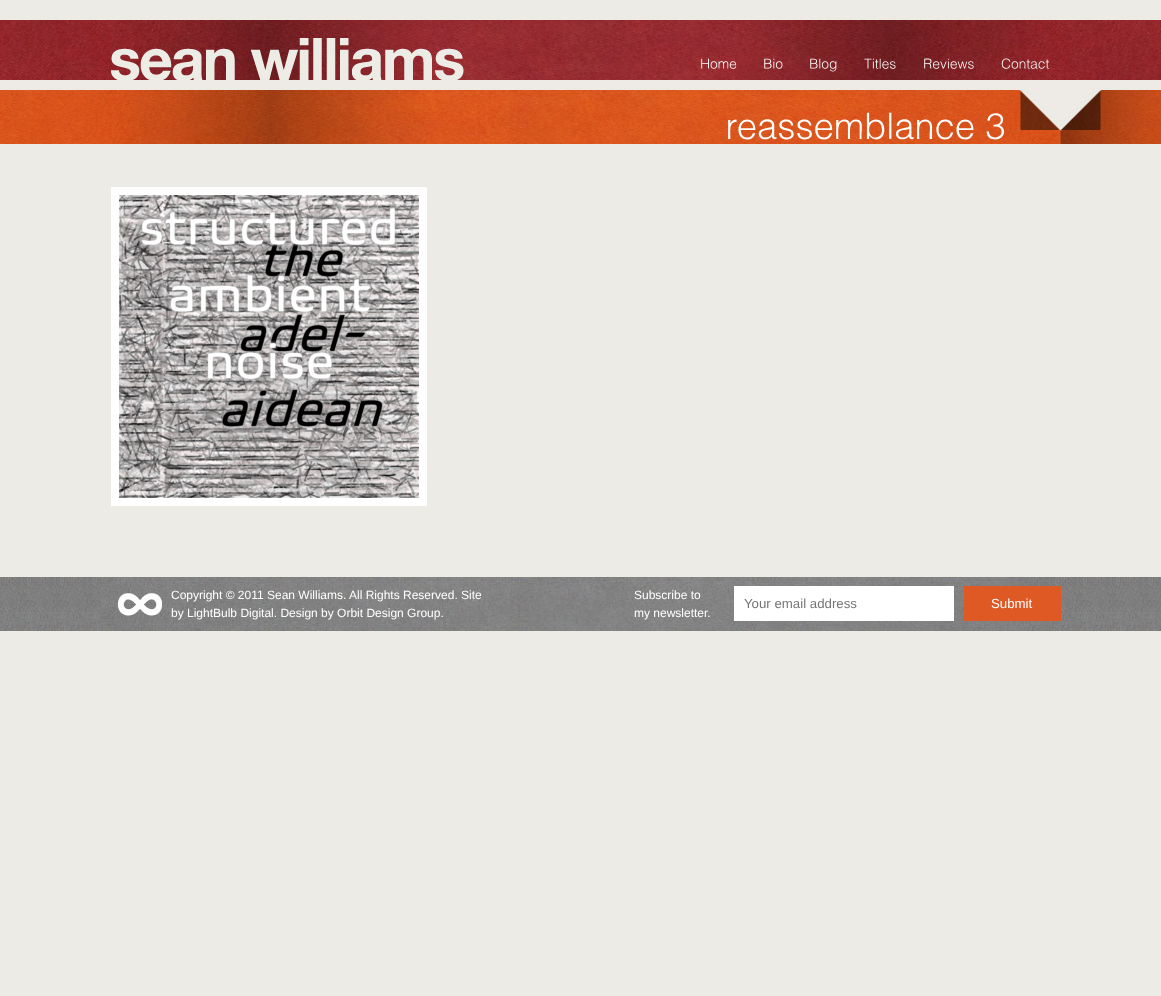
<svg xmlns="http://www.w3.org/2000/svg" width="1161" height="996">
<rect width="100%" height="100%" fill="#edebe5"/>
<image x="0" y="16" width="1161" height="128" href="media/1.png"/>
<image x="111" y="38" width="353" height="42" href="media/2.png"/>
<image x="701" y="58" width="36" height="11" href="media/3.png"/>
<image x="764" y="58" width="19" height="11" href="media/4.png"/>
<image x="810" y="58" width="27" height="14" href="media/5.png"/>
<image x="864" y="58" width="32" height="11" href="media/6.png"/>
<image x="924" y="58" width="50" height="11" href="media/7.png"/>
<image x="1001" y="58" width="48" height="11" href="media/8.png"/>
<image x="728" y="112" width="246" height="28" href="media/9.png"/>
<image x="986" y="113" width="19" height="27" href="media/10.png"/>
<rect x="115" y="191" width="308" height="311" fill="none" stroke="#fff" stroke-width="8"/>
<image x="119" y="195" width="300" height="303" href="media/11.png"/>
<image x="0" y="577" width="1161" height="54" href="media/12.png"/>
<image x="101" y="577" width="960" height="54" href="media/13.png"/>
<text x="171" y="599" style="font-family:Liberation Sans;font-size:12px;fill:#fff">Copyright © 2011 Sean Williams.</text>
<text x="349" y="599" style="font-family:Liberation Sans;font-size:12px;fill:#fff">All Rights Reserved. Site</text>
<text x="171" y="617" style="font-family:Liberation Sans;font-size:12px;fill:#fff">by LightBulb Digital. Design by Orbit Design Group.</text>
<text x="634" y="599" style="font-family:Liberation Sans;font-size:12px;fill:#fff">Subscribe to</text>
<text x="634" y="617" style="font-family:Liberation Sans;font-size:12px;fill:#fff">my newsletter.</text>
<rect x="734" y="586" width="220" height="35" fill="#fff"/>
<text x="744" y="608" style="font-family:Liberation Sans;font-size:13.25px;fill:#757575">Your email address</text>
<rect x="964" y="586" width="97" height="35" fill="#df5924"/>
<text x="991" y="608" style="font-family:Liberation Sans;font-size:13.25px;fill:#fff">Submit</text>
</svg>
